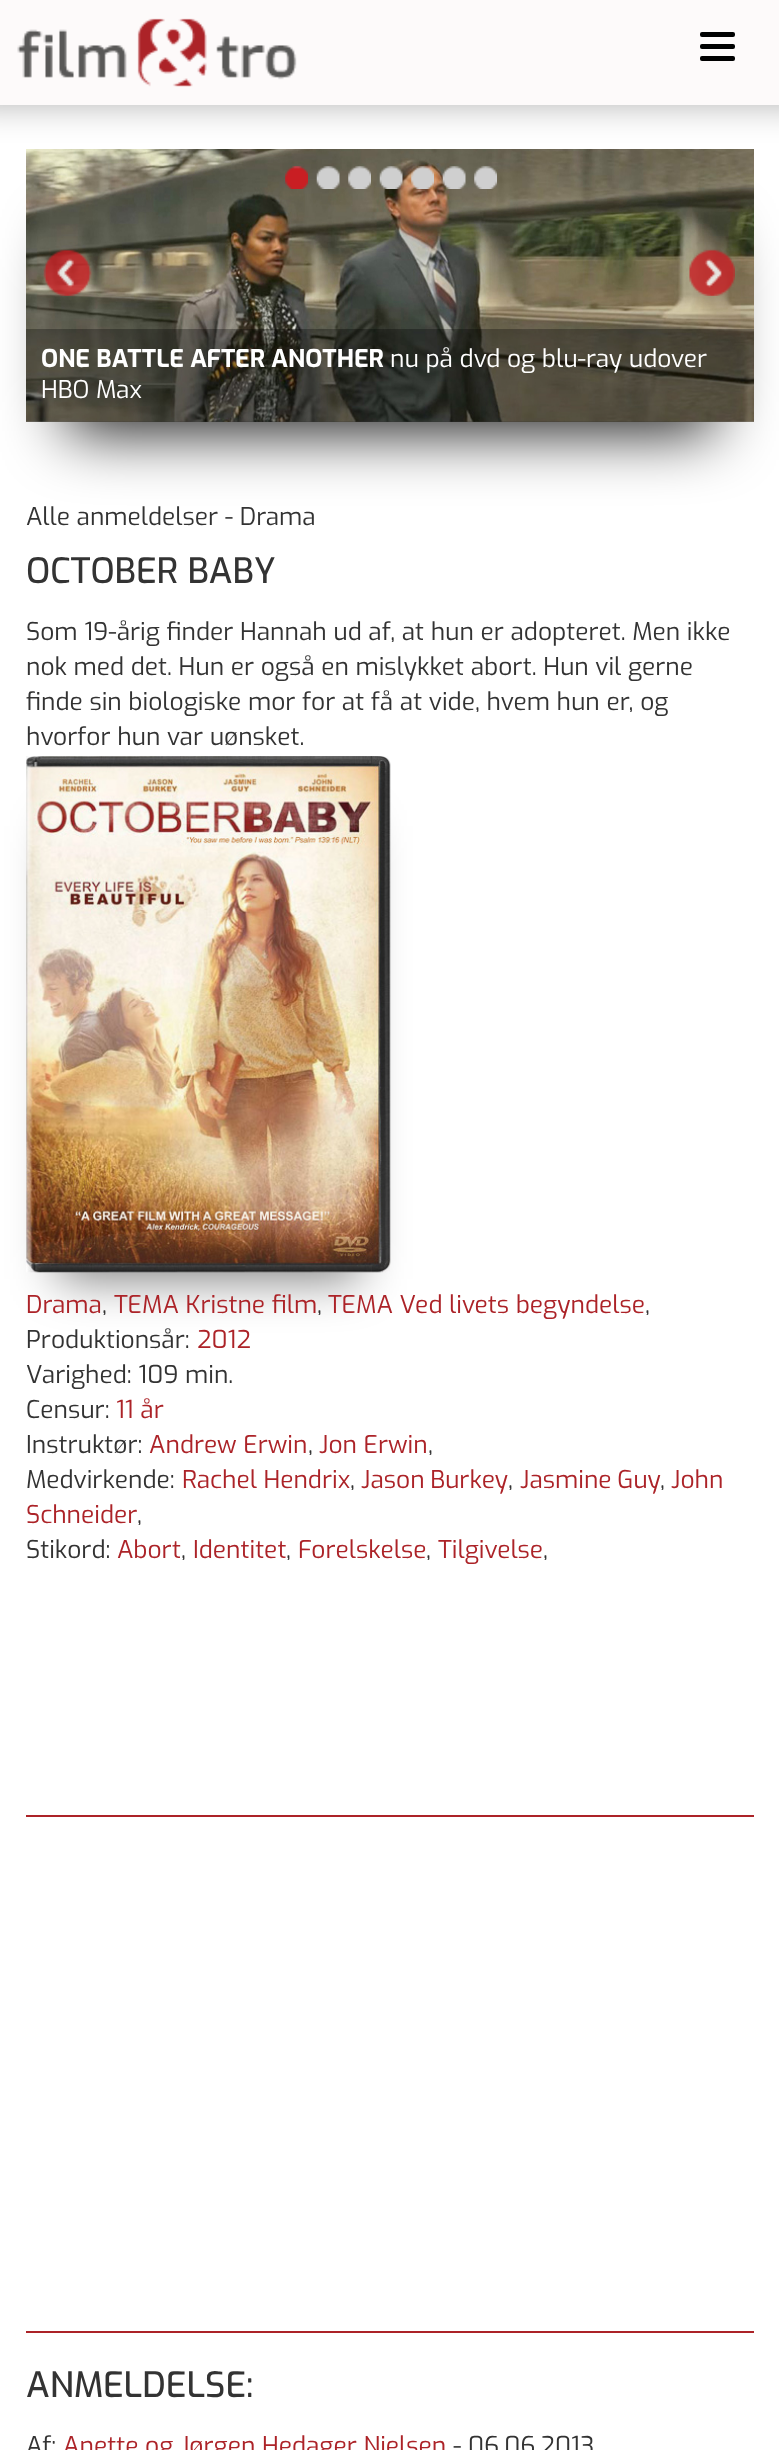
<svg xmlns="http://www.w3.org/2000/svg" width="779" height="2450">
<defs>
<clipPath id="clip1"><rect x="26" y="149" width="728" height="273"/></clipPath>
</defs>
<rect width="100%" height="100%" fill="#fff"/>
<rect x="67" y="238" width="647" height="193" fill="#000000e6" filter="blur(31.5px)"/>
<g clip-path="url(#clip1)">
<rect x="-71" y="219" width="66" height="210" fill="#00000080" filter="blur(23.5px)"/>
<rect x="58" y="219" width="665" height="210" fill="#00000080" filter="blur(23.5px)"/>
</g>
<image x="26" y="149" width="728" height="273" href="media/11.png"/>
<rect x="-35" y="-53" width="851" height="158" fill="#0000004d" filter="blur(17.5px)"/>
<rect width="779" height="105" fill="#fdfafa"/>
<image x="17" y="18" width="280" height="69" href="media/1.png"/>
<rect x="700" y="32" width="35" height="5" rx="2" fill="#000"/>
<rect x="700" y="44" width="35" height="5" rx="2" fill="#000"/>
<rect x="700" y="56" width="35" height="5" rx="2" fill="#000"/>
<image x="285" y="166" width="23" height="23" href="media/2.png"/>
<image x="316" y="166" width="24" height="23" href="media/3.png"/>
<image x="348" y="166" width="23" height="23" href="media/4.png"/>
<image x="379" y="166" width="24" height="23" href="media/5.png"/>
<image x="411" y="166" width="23" height="23" href="media/6.png"/>
<image x="442" y="166" width="24" height="23" href="media/7.png"/>
<image x="474" y="166" width="23" height="23" href="media/8.png"/>
<image x="43" y="249" width="49" height="47" href="media/9.png"/>
<image x="689" y="249" width="46" height="47" href="media/10.png"/>
<rect x="26" y="329" width="728" height="93" fill="#0000004d"/>
<text x="41" y="367" style="font-family:Exo;font-size:24.5px;font-weight:bold;fill:#fff">ONE BATTLE AFTER ANOTHER</text>
<text x="390" y="367" style="font-family:Exo;font-size:24.5px;fill:#fff">nu på dvd og blu-ray udover</text>
<text x="41" y="398" style="font-family:Exo;font-size:24.5px;fill:#fff">HBO Max</text>
<text x="26" y="525" style="font-family:Exo;font-size:24.5px;fill:#333">Alle anmeldelser - Drama</text>
<text x="26" y="583" style="font-family:Exo;font-size:35px;font-weight:500;fill:#333">OCTOBER BABY</text>
<text x="26" y="640" style="font-family:Exo;font-size:24.5px;fill:#333">Som 19-årig finder Hannah ud af, at hun er adopteret. Men ikke</text>
<text x="26" y="675" style="font-family:Exo;font-size:24.5px;fill:#333">nok med det. Hun er også en mislykket abort. Hun vil gerne</text>
<text x="26" y="710" style="font-family:Exo;font-size:24.5px;fill:#333">finde sin biologiske mor for at få at vide, hvem hun er, og</text>
<text x="26" y="745" style="font-family:Exo;font-size:24.5px;fill:#333">hvorfor hun var uønsket.</text>
<rect x="58" y="826" width="301" height="453" fill="#00000080" filter="blur(23.5px)"/>
<image x="26" y="756" width="365" height="517" href="media/12.png"/>
<text x="26" y="1313" style="font-family:Exo;font-size:24.5px;fill:#ac2328">Drama</text>
<text x="102" y="1313" style="font-family:Exo;font-size:24.5px;fill:#333">,</text>
<text x="114" y="1313" style="font-family:Exo;font-size:24.5px;fill:#ac2328">TEMA Kristne film</text>
<text x="317" y="1313" style="font-family:Exo;font-size:24.5px;fill:#333">,</text>
<text x="328" y="1313" style="font-family:Exo;font-size:24.5px;fill:#ac2328">TEMA Ved livets begyndelse</text>
<text x="645" y="1313" style="font-family:Exo;font-size:24.5px;fill:#333">,</text>
<text x="26" y="1348" style="font-family:Exo;font-size:24.5px;fill:#333">Produktionsår:</text>
<text x="197" y="1348" style="font-family:Exo;font-size:24.5px;fill:#ac2328">2012</text>
<text x="26" y="1383" style="font-family:Exo;font-size:24.5px;fill:#333">Varighed: 109 min.</text>
<text x="26" y="1418" style="font-family:Exo;font-size:24.5px;fill:#333">Censur:</text>
<text x="116" y="1418" style="font-family:Exo;font-size:24.5px;fill:#ac2328">11 år</text>
<text x="26" y="1453" style="font-family:Exo;font-size:24.5px;fill:#333">Instruktør:</text>
<text x="149" y="1453" style="font-family:Exo;font-size:24.5px;fill:#ac2328">Andrew Erwin</text>
<text x="308" y="1453" style="font-family:Exo;font-size:24.5px;fill:#333">,</text>
<text x="319" y="1453" style="font-family:Exo;font-size:24.5px;fill:#ac2328">Jon Erwin</text>
<text x="428" y="1453" style="font-family:Exo;font-size:24.5px;fill:#333">,</text>
<text x="26" y="1488" style="font-family:Exo;font-size:24.5px;fill:#333">Medvirkende:</text>
<text x="182" y="1488" style="font-family:Exo;font-size:24.5px;fill:#ac2328">Rachel Hendrix</text>
<text x="350" y="1488" style="font-family:Exo;font-size:24.5px;fill:#333">,</text>
<text x="361" y="1488" word-spacing="-1" style="font-family:Exo;font-size:24.5px;fill:#ac2328">Jason Burkey</text>
<text x="508" y="1488" style="font-family:Exo;font-size:24.5px;fill:#333">,</text>
<text x="520" y="1488" word-spacing="-1" style="font-family:Exo;font-size:24.5px;fill:#ac2328">Jasmine Guy</text>
<text x="660" y="1488" style="font-family:Exo;font-size:24.5px;fill:#333">,</text>
<text x="671" y="1488" style="font-family:Exo;font-size:24.5px;fill:#ac2328">John</text>
<text x="26" y="1523" style="font-family:Exo;font-size:24.5px;fill:#ac2328">Schneider</text>
<text x="137" y="1523" style="font-family:Exo;font-size:24.5px;fill:#333">,</text>
<text x="26" y="1558" style="font-family:Exo;font-size:24.5px;fill:#333">Stikord:</text>
<text x="117" y="1558" style="font-family:Exo;font-size:24.5px;fill:#ac2328">Abort</text>
<text x="181" y="1558" style="font-family:Exo;font-size:24.5px;fill:#333">,</text>
<text x="193" y="1558" style="font-family:Exo;font-size:24.5px;fill:#ac2328">Identitet</text>
<text x="286" y="1558" style="font-family:Exo;font-size:24.5px;fill:#333">,</text>
<text x="298" y="1558" style="font-family:Exo;font-size:24.5px;fill:#ac2328">Forelskelse</text>
<text x="426" y="1558" style="font-family:Exo;font-size:24.5px;fill:#333">,</text>
<text x="438" y="1558" style="font-family:Exo;font-size:24.5px;fill:#ac2328">Tilgivelse</text>
<text x="543" y="1558" style="font-family:Exo;font-size:24.5px;fill:#333">,</text>
<rect x="26" y="1815" width="728" height="2" fill="#ac2328"/>
<rect x="26" y="2331" width="728" height="2" fill="#ac2328"/>
<text x="26" y="2397" style="font-family:Exo;font-size:35px;font-weight:500;fill:#333">ANMELDELSE:</text>
<text x="26" y="2454" style="font-family:Exo;font-size:24.5px;fill:#333">Af:</text>
<text x="63" y="2454" style="font-family:Exo;font-size:24.5px;fill:#ac2328">Anette og Jørgen Hedager Nielsen</text>
<text x="453" y="2454" style="font-family:Exo;font-size:24.5px;fill:#333">- 06.06.2013</text>
</svg>
